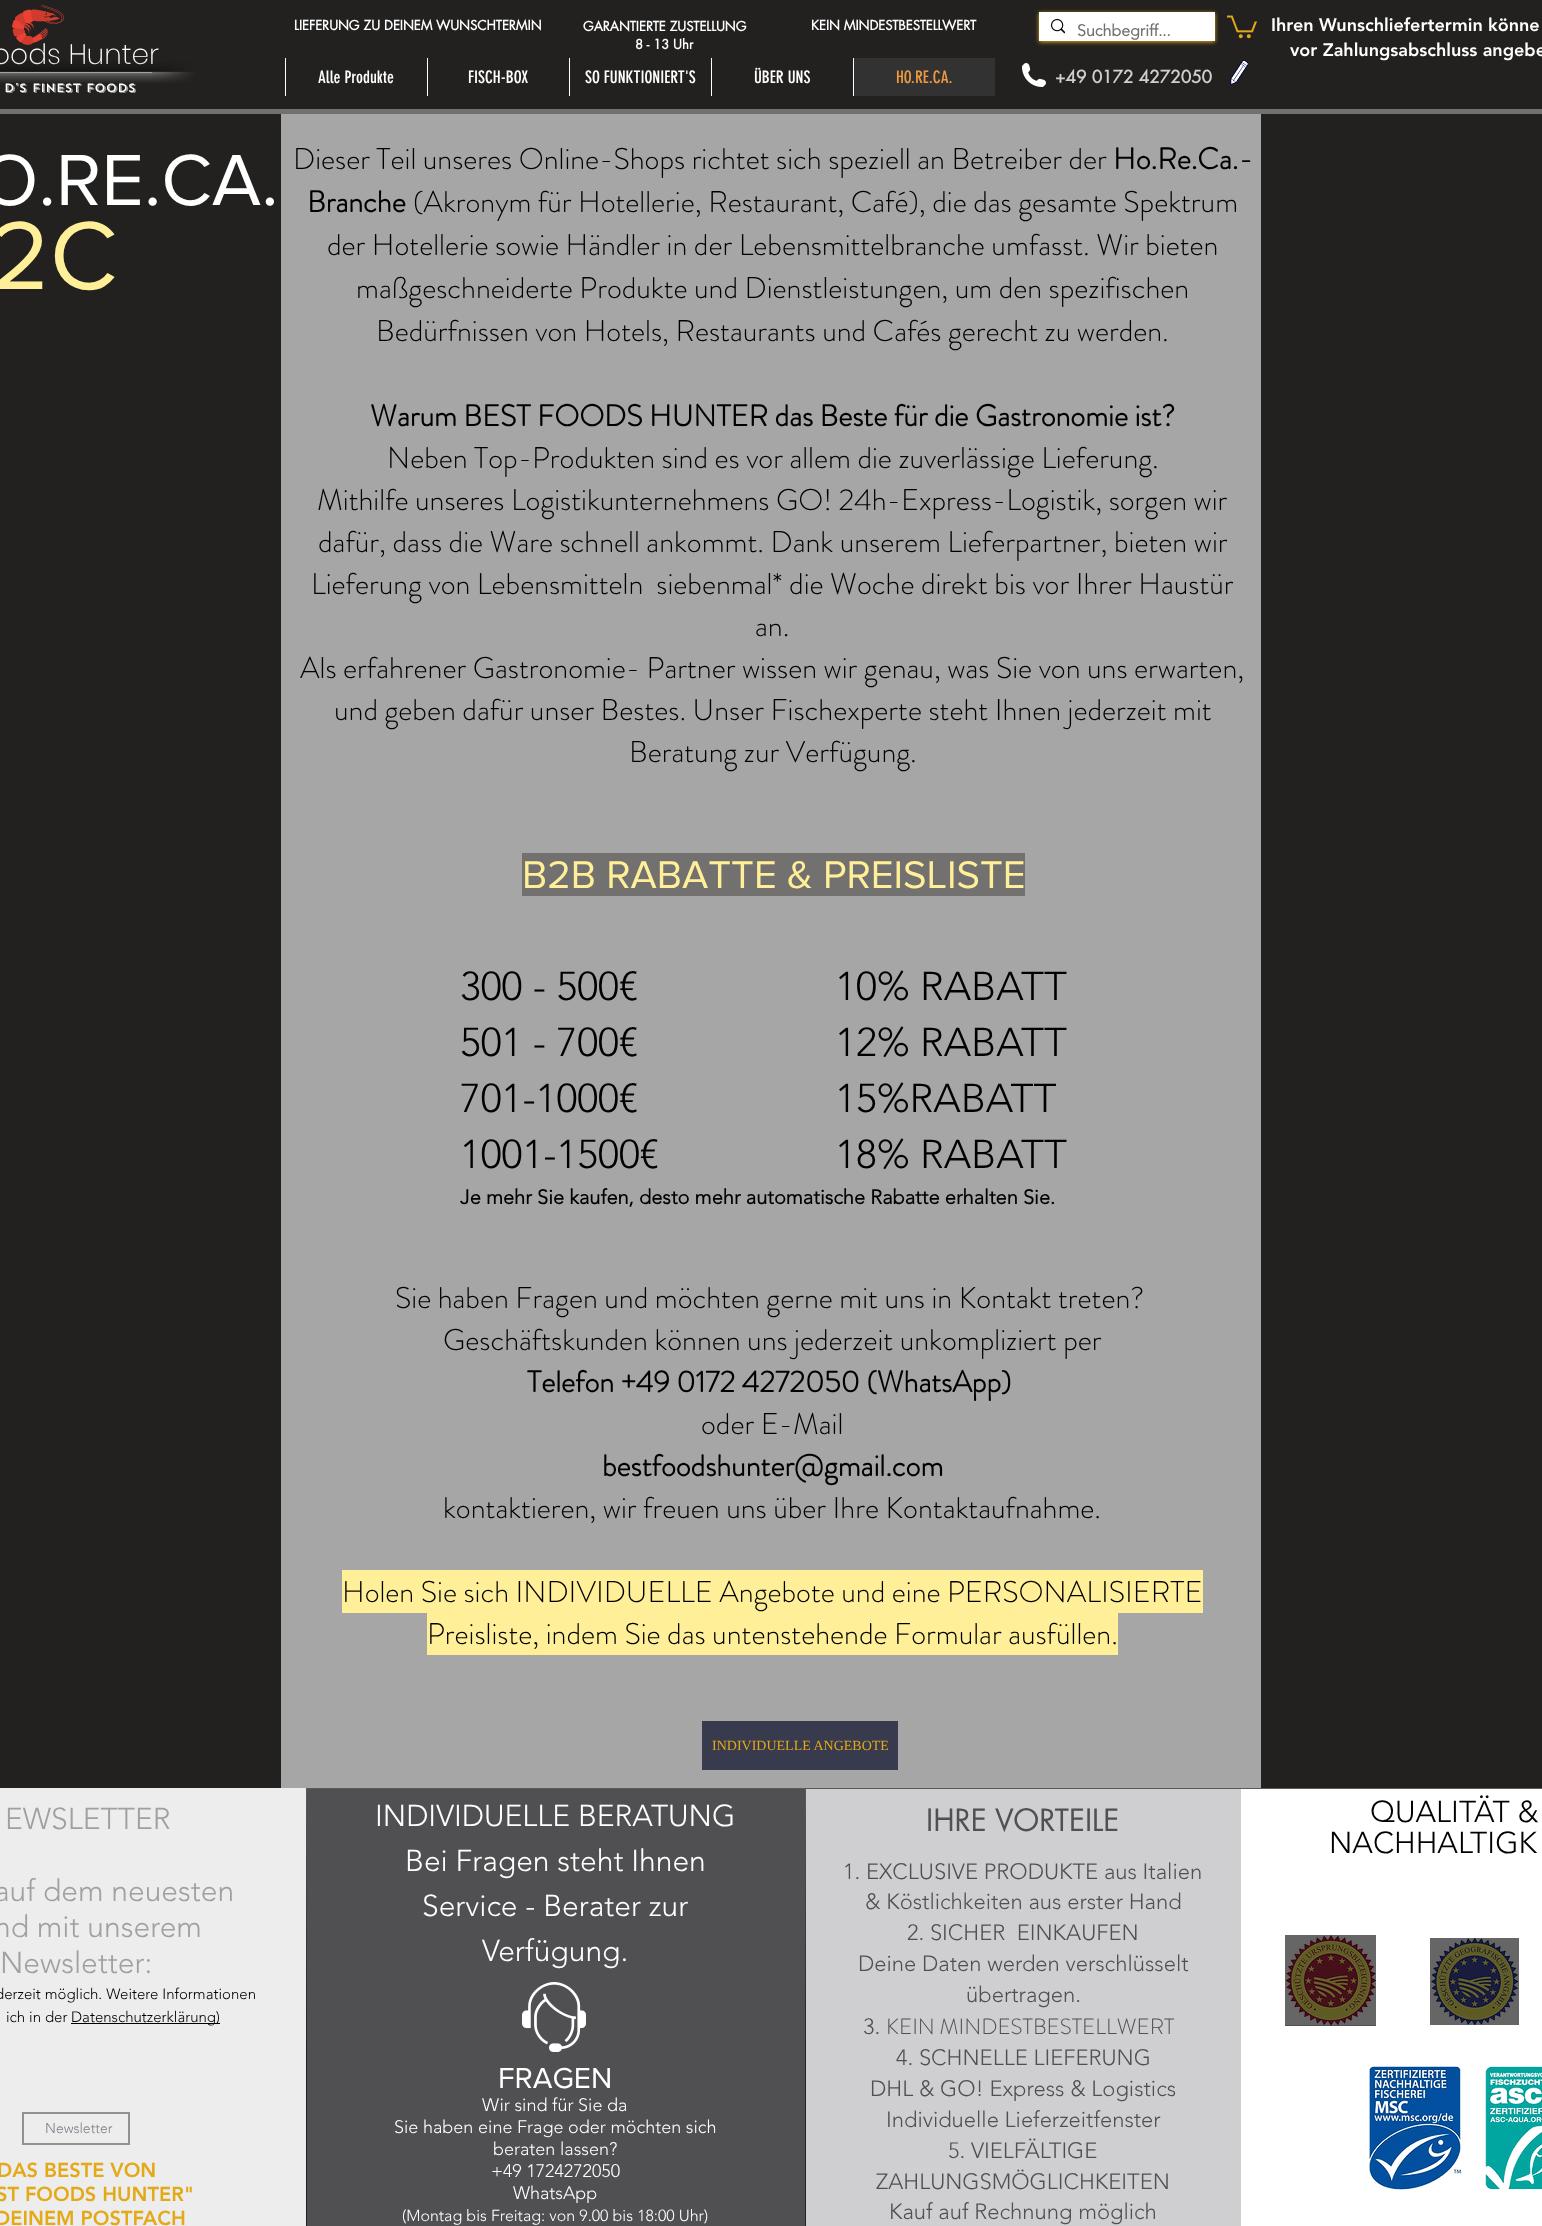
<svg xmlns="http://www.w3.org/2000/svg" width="1542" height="2226">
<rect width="100%" height="100%" fill="#222120"/>
<image x="12" y="4" width="52" height="41" href="media/1.png"/>
<text x="294" y="30" style="font-family:futura;font-size:13px;font-weight:bold;fill:#fff">LIEFERUNG ZU DEINEM WUNSCHTERMIN</text>
<text x="583" y="31" style="font-family:futura;font-size:13px;font-weight:bold;fill:#fff">GARANTIERTE ZUSTELLUNG</text>
<text x="635" y="49" style="font-family:futura;font-size:13px;font-weight:bold;fill:#fff">8 - 13 Uhr</text>
<text x="811" y="30" style="font-family:futura;font-size:13px;font-weight:bold;fill:#fff">KEIN MINDESTBESTELLWERT</text>
<rect x="1039" y="13" width="176" height="29" fill="#e3a917" filter="blur(2px)"/>
<rect x="1039" y="12" width="176" height="29" fill="#fff"/>
<image x="1051" y="19" width="14" height="15" href="media/2.png"/>
<text x="1077" y="36" style="font-family:'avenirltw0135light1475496';font-size:16px;font-weight:bold;fill:#72716f">Suchbegriff...</text>
<image x="1227" y="15" width="30" height="24" href="media/3.png"/>
<text x="1271" y="31" style="font-family:'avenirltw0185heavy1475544';font-size:18px;font-weight:900;fill:#fff">Ihren Wunschliefertermin könne</text>
<text x="1290" y="56" style="font-family:'avenirltw0185heavy1475544';font-size:18px;font-weight:900;fill:#fff">vor Zahlungsabschluss angebe</text>
<text x="-8" y="64" style="font-family:Poppins;font-size:28px;font-weight:200;fill:#fff">oods Hunter</text>
<image x="0" y="60" width="152" height="23" href="media/4.png"/>
<image x="152" y="61" width="42" height="22" href="media/5.png"/>
<rect x="285" y="58" width="1" height="38" fill="#fff"/>
<text x="318" y="83" style="font-family:'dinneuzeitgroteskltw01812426';font-size:17px;fill:#fff">Alle Produkte</text>
<rect x="427" y="58" width="1" height="38" fill="#fff"/>
<text x="468" y="83" style="font-family:'dinneuzeitgroteskltw01812426';font-size:17px;fill:#fff">FISCH-BOX</text>
<rect x="569" y="58" width="1" height="38" fill="#fff"/>
<text x="585" y="83" style="font-family:'dinneuzeitgroteskltw01812426';font-size:17px;fill:#fff">SO FUNKTIONIERT'S</text>
<rect x="711" y="58" width="1" height="38" fill="#fff"/>
<text x="754" y="83" style="font-family:'dinneuzeitgroteskltw01812426';font-size:17px;fill:#fff">ÜBER UNS</text>
<rect x="854" y="58" width="141" height="38" fill="#323232"/>
<rect x="853" y="58" width="1" height="38" fill="#fff"/>
<text x="896" y="83" style="font-family:'dinneuzeitgroteskltw01812426';font-size:17px;fill:#ed9942">HO.RE.CA.</text>
<image x="1022" y="63" width="24" height="24" href="media/6.png"/>
<text x="1055" y="83" style="font-family:futura;font-size:17px;font-weight:bold;fill:#d0cfcd">+49 0172 4272050</text>
<image x="1230" y="60" width="19" height="25" href="media/7.png"/>
<text x="4" y="92" style="font-family:'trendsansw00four';font-size:12px;font-weight:500;fill:#fff">d's Finest Foods</text>
<rect y="109" width="1542" height="5" fill="#72716f"/>
<rect x="281" y="114" width="980" height="1674" fill="#a6a6a6"/>
<text x="-19" y="205" style="font-family:'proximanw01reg';font-size:75px;fill:#fff">O.RE.CA.</text>
<text x="-9" y="289" style="font-family:'proximanw01reg';font-size:100px;fill:#ffef98">2C</text>
<text x="293" y="169" style="font-family:'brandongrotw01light';font-size:30px;font-weight:300;fill:#000">Dieser Teil unseres Online-Shops richtet sich speziell an Betreiber der</text>
<text x="1113" y="169" style="font-family:'brandongrotw01light';font-size:30px;font-weight:bold;fill:#000">Ho.Re.Ca.-</text>
<text x="307" y="212" style="font-family:'brandongrotw01light';font-size:30px;font-weight:bold;fill:#000">Branche</text>
<text x="413" y="212" style="font-family:'brandongrotw01light';font-size:30px;font-weight:300;fill:#000">(Akronym für Hotellerie, Restaurant, Café), die das gesamte Spektrum</text>
<text x="327" y="255" style="font-family:'brandongrotw01light';font-size:30px;font-weight:300;fill:#000">der Hotellerie sowie Händler in der Lebensmittelbranche umfasst. Wir bieten</text>
<text x="356" y="298" style="font-family:'brandongrotw01light';font-size:30px;font-weight:300;fill:#000">maßgeschneiderte Produkte und Dienstleistungen, um den spezifischen</text>
<text x="376" y="341" style="font-family:'brandongrotw01light';font-size:30px;font-weight:300;fill:#000">Bedürfnissen von Hotels, Restaurants und Cafés gerecht zu werden.</text>
<text x="370" y="426" style="font-family:'brandongrotw01light';font-size:30px;font-weight:bold;fill:#000">Warum BEST FOODS HUNTER das Beste für die Gastronomie ist?</text>
<text x="387" y="468" style="font-family:'brandongrotw01light';font-size:30px;font-weight:300;fill:#000">Neben Top-Produkten sind es vor allem die zuverlässige Lieferung.</text>
<text x="317" y="510" style="font-family:'brandongrotw01light';font-size:30px;font-weight:300;fill:#000">Mithilfe unseres Logistikunternehmens GO! 24h-Express-Logistik, sorgen wir</text>
<text x="318" y="552" style="font-family:'brandongrotw01light';font-size:30px;font-weight:300;fill:#000">dafür, dass die Ware schnell ankommt. Dank unserem Lieferpartner, bieten wir</text>
<text x="311" y="594" style="font-family:'brandongrotw01light';font-size:30px;font-weight:300;fill:#000" xml:space="preserve">Lieferung von Lebensmitteln  siebenmal* die Woche direkt bis vor Ihrer Haustür</text>
<text x="755" y="636" style="font-family:'brandongrotw01light';font-size:30px;font-weight:300;fill:#000">an.</text>
<text x="300" y="678" style="font-family:'brandongrotw01light';font-size:30px;font-weight:300;fill:#000">Als erfahrener Gastronomie- Partner wissen wir genau, was Sie von uns erwarten,</text>
<text x="334" y="720" style="font-family:'brandongrotw01light';font-size:30px;font-weight:300;fill:#000">und geben dafür unser Bestes. Unser Fischexperte steht Ihnen jederzeit mit</text>
<text x="629" y="762" style="font-family:'brandongrotw01light';font-size:30px;font-weight:300;fill:#000">Beratung zur Verfügung.</text>
<text x="395" y="1308" style="font-family:'brandongrotw01light';font-size:30px;font-weight:300;fill:#000">Sie haben Fragen und möchten gerne mit uns in Kontakt treten?</text>
<text x="443" y="1350" style="font-family:'brandongrotw01light';font-size:30px;font-weight:300;fill:#000">Geschäftskunden können uns jederzeit unkompliziert per</text>
<text x="527" y="1392" style="font-family:'brandongrotw01light';font-size:30px;font-weight:bold;fill:#000">Telefon +49 0172 4272050 (WhatsApp)</text>
<text x="701" y="1434" style="font-family:'brandongrotw01light';font-size:30px;font-weight:300;fill:#000">oder E-Mail</text>
<text x="602" y="1476" style="font-family:'brandongrotw01light';font-size:30px;font-weight:bold;fill:#000">bestfoodshunter@gmail.com</text>
<text x="443" y="1518" style="font-family:'brandongrotw01light';font-size:30px;font-weight:300;fill:#000">kontaktieren, wir freuen uns über Ihre Kontaktaufnahme.</text>
<rect x="342" y="1570" width="861" height="43" fill="#ffef98"/>
<text x="342" y="1602" style="font-family:'brandongrotw01light';font-size:30px;font-weight:300;fill:#000">Holen Sie sich INDIVIDUELLE Angebote und eine PERSONALISIERTE</text>
<rect x="427" y="1613" width="691" height="42" fill="#ffef98"/>
<text x="427" y="1644" style="font-family:'brandongrotw01light';font-size:30px;font-weight:300;fill:#000">Preisliste, indem Sie das untenstehende Formular ausfüllen.</text>
<rect x="522" y="853" width="503" height="43" fill="#72716f"/>
<text x="522" y="888" style="font-family:'proximanw01reg';font-size:40px;fill:#ffef98">B2B RABATTE &amp; PREISLISTE</text>
<text x="460" y="1000" style="font-family:'avenirltw0135light1475496';font-size:40px;font-weight:300;fill:#000" xml:space="preserve">300 - 500€                   10% RABATT</text>
<text x="460" y="1056" style="font-family:'avenirltw0135light1475496';font-size:40px;font-weight:300;fill:#000" xml:space="preserve">501 - 700€                   12% RABATT</text>
<text x="460" y="1112" style="font-family:'avenirltw0135light1475496';font-size:40px;font-weight:300;fill:#000" xml:space="preserve">701-1000€                   15%RABATT</text>
<text x="460" y="1168" style="font-family:'avenirltw0135light1475496';font-size:40px;font-weight:300;fill:#000" xml:space="preserve">1001-1500€                 18% RABATT</text>
<text x="460" y="1204" style="font-family:'avenirltw0135light1475496';font-size:20px;font-weight:bold;fill:#000">Je mehr Sie kaufen, desto mehr automatische Rabatte erhalten Sie.</text>
<rect x="702" y="1721" width="196" height="49" fill="#373b4d"/>
<text x="712" y="1750" style="font-family:Liberation Serif;font-size:14px;fill:#e3a917">INDIVIDUELLE ANGEBOTE</text>
<image x="306" y="1788" width="1236" height="254" href="media/8.png"/>
<rect x="307" y="1789" width="498" height="437" fill="#505052"/>
<rect x="806" y="1789" width="435" height="437" fill="#cfcfd2"/>
<rect x="1241" y="1789" width="301" height="437" fill="#fff"/>
<rect y="1788" width="306" height="438" fill="#ededed"/>
<text x="5" y="1829" style="font-family:'avenirltw0135light1475496';font-size:30px;font-weight:300;fill:#a1a09e">EWSLETTER</text>
<text x="-6" y="1901" style="font-family:'avenirltw0135light1475496';font-size:30px;font-weight:300;fill:#a1a09e">auf dem neuesten</text>
<text x="-6" y="1937" style="font-family:'avenirltw0135light1475496';font-size:30px;font-weight:300;fill:#a1a09e">nd mit unserem</text>
<text x="0" y="1973" style="font-family:'avenirltw0135light1475496';font-size:30px;font-weight:300;fill:#a1a09e">Newsletter:</text>
<text x="-5" y="1999" style="font-family:'avenirltw0135light1475496';font-size:15px;font-weight:300;fill:#000">derzeit möglich. Weitere Informationen</text>
<text x="6" y="2022" style="font-family:'avenirltw0135light1475496';font-size:15px;font-weight:300;fill:#000">ich in der</text>
<rect x="71" y="2023" width="149" height="1" fill="#000"/>
<text x="71" y="2022" style="font-family:'avenirltw0135light1475496';font-size:15px;font-weight:300;fill:#000">Datenschutzerklärung)</text>
<rect x="23" y="2113" width="106" height="31" fill="none" stroke="#919191" stroke-width="2"/>
<text x="45" y="2133" style="font-family:'avenirltw0135light1475496';font-size:14px;font-weight:300;fill:#7f808a">Newsletter</text>
<text x="-3" y="2177" style="font-family:'avenirltw0185heavy1475544';font-size:20px;font-weight:900;fill:#e3a917">DAS BESTE VON</text>
<text x="-4" y="2201" style="font-family:'avenirltw0185heavy1475544';font-size:20px;font-weight:900;fill:#e3a917">ST FOODS HUNTER"</text>
<text x="-5" y="2225" style="font-family:'avenirltw0185heavy1475544';font-size:20px;font-weight:900;fill:#e3a917">DEINEM POSTFACH</text>
<text x="375" y="1826" style="font-family:'avenirltw0135light1475496';font-size:30px;font-weight:300;fill:#fff">INDIVIDUELLE BERATUNG</text>
<text x="405" y="1871" style="font-family:'avenirltw0135light1475496';font-size:30px;font-weight:300;fill:#fff">Bei Fragen steht Ihnen</text>
<text x="422" y="1916" style="font-family:'avenirltw0135light1475496';font-size:30px;font-weight:300;fill:#fff">Service - Berater zur</text>
<text x="482" y="1961" style="font-family:'avenirltw0135light1475496';font-size:30px;font-weight:300;fill:#fff">Verfügung.</text>
<text x="498" y="2088" style="font-family:'proximanw01reg';font-size:30px;fill:#fff">FRAGEN</text>
<text x="482" y="2111" style="font-family:'avenirltw0135light1475496';font-size:18px;font-weight:300;fill:#fff">Wir sind für Sie da</text>
<text x="394" y="2133" style="font-family:'avenirltw0135light1475496';font-size:18px;font-weight:300;fill:#fff">Sie haben eine Frage oder möchten sich</text>
<text x="493" y="2155" style="font-family:'avenirltw0135light1475496';font-size:18px;font-weight:300;fill:#fff">beraten lassen?</text>
<text x="491" y="2177" style="font-family:'avenirltw0135light1475496';font-size:18px;font-weight:300;fill:#fff">+49 1724272050</text>
<text x="513" y="2199" style="font-family:'avenirltw0135light1475496';font-size:18px;font-weight:300;fill:#fff">WhatsApp</text>
<text x="402" y="2221" style="font-family:'avenirltw0135light1475496';font-size:16px;font-weight:300;fill:#fff">(Montag bis Freitag: von 9.00 bis 18:00 Uhr)</text>
<text x="926" y="1831" style="font-family:futura;font-size:30px;fill:#505052">IHRE VORTEILE</text>
<text x="843" y="1879" style="font-family:'avenirltw0135light1475496';font-size:22px;font-weight:300;fill:#505052">1. EXCLUSIVE PRODUKTE aus Italien</text>
<text x="865" y="1909" style="font-family:'avenirltw0135light1475496';font-size:22px;font-weight:300;fill:#505052">&amp; Köstlichkeiten aus erster Hand</text>
<text x="907" y="1940" style="font-family:'avenirltw0135light1475496';font-size:22px;font-weight:300;fill:#505052" xml:space="preserve">2. SICHER  EINKAUFEN</text>
<text x="858" y="1971" style="font-family:'avenirltw0135light1475496';font-size:22px;font-weight:300;fill:#505052">Deine Daten werden verschlüsselt</text>
<text x="966" y="2002" style="font-family:'avenirltw0135light1475496';font-size:22px;font-weight:300;fill:#505052">übertragen.</text>
<text x="863" y="2034" style="font-family:'avenirltw0135light1475496';font-size:22px;font-weight:300;fill:#505052">3.</text>
<text x="886" y="2034" style="font-family:'brandongrotw01light';font-size:22px;font-weight:300;fill:#505052">KEIN MINDESTBESTELLWERT</text>
<text x="896" y="2065" style="font-family:'avenirltw0135light1475496';font-size:22px;font-weight:300;fill:#505052">4. SCHNELLE LIEFERUNG</text>
<text x="870" y="2096" style="font-family:'avenirltw0135light1475496';font-size:22px;font-weight:300;fill:#505052">DHL &amp; GO! Express &amp; Logistics</text>
<text x="886" y="2127" style="font-family:'avenirltw0135light1475496';font-size:22px;font-weight:300;fill:#505052">Individuelle Lieferzeitfenster</text>
<text x="948" y="2158" style="font-family:'avenirltw0135light1475496';font-size:22px;font-weight:300;fill:#505052">5. VIELFÄLTIGE</text>
<text x="876" y="2189" style="font-family:'avenirltw0135light1475496';font-size:22px;font-weight:300;fill:#505052">ZAHLUNGSMÖGLICHKEITEN</text>
<text x="889" y="2219" style="font-family:'avenirltw0135light1475496';font-size:22px;font-weight:300;fill:#505052">Kauf auf Rechnung möglich</text>
<image x="1285" y="1935" width="91" height="91" href="media/9.png"/>
<text x="1370" y="1822" style="font-family:'avenirltw0135light1475496';font-size:30px;font-weight:300;fill:#000">QUALITÄT &amp;</text>
<text x="1329" y="1853" style="font-family:'avenirltw0135light1475496';font-size:30px;font-weight:300;fill:#000">NACHHALTIGK</text>
<image x="522" y="1982" width="64" height="70" href="media/10.png"/>
<image x="1430" y="1938" width="89" height="87" href="media/11.png"/>
<image x="1369" y="2066" width="173" height="124" href="media/12.png"/>
</svg>
